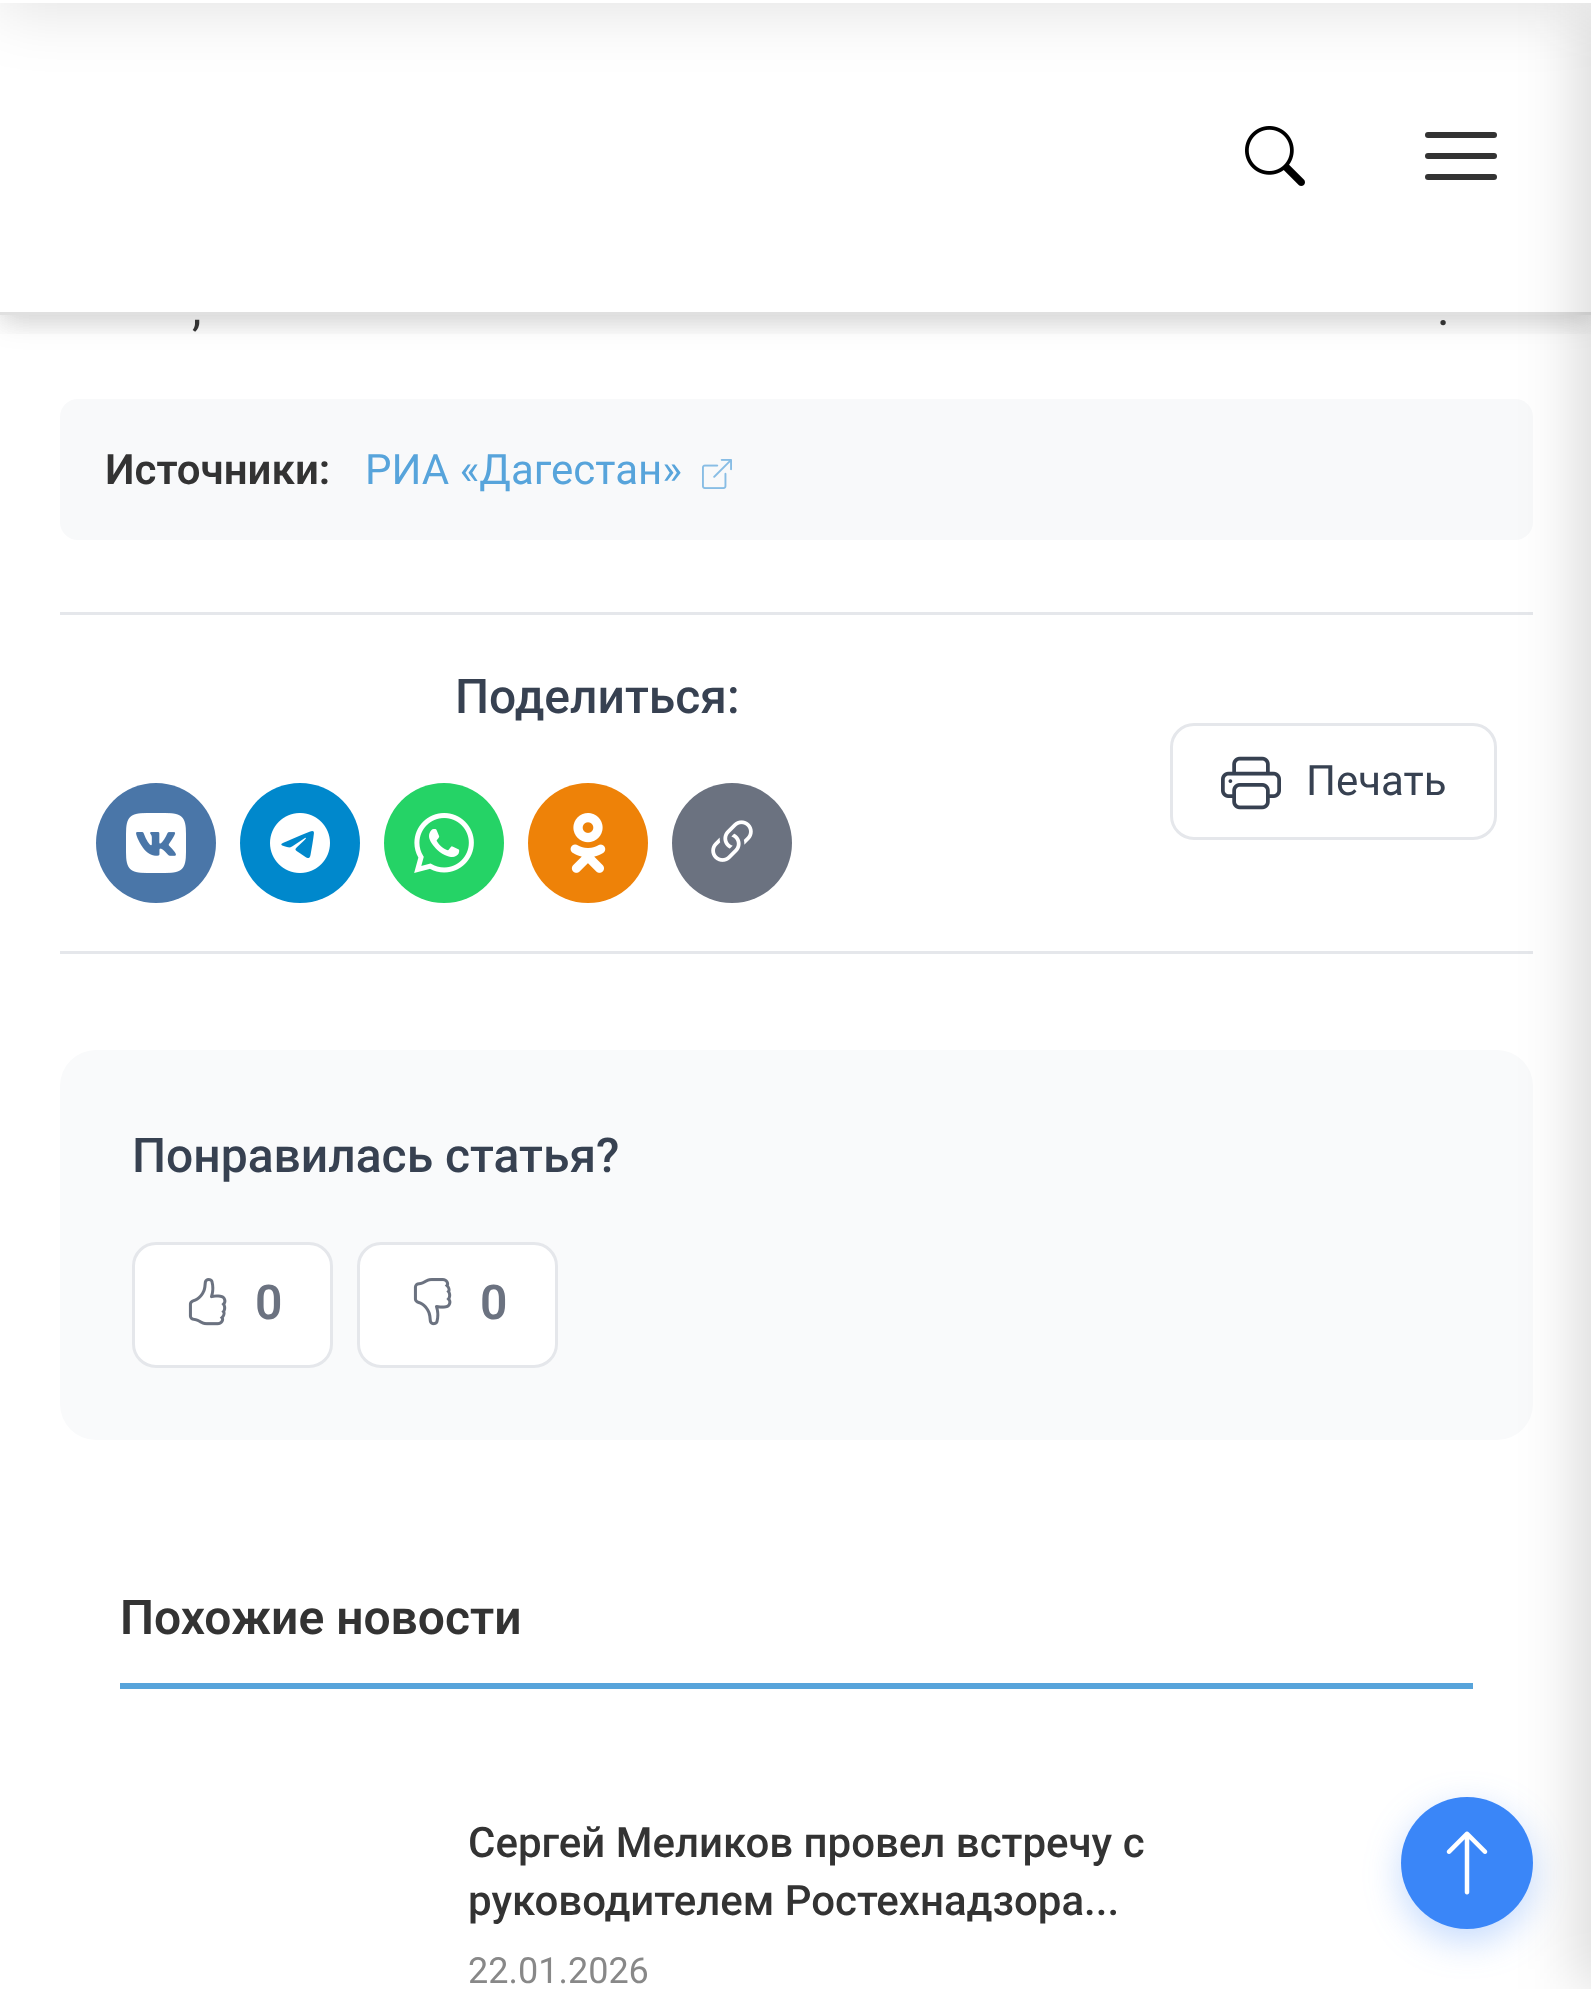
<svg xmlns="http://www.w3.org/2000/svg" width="1591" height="1989">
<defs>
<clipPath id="clip1"><rect x="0" y="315" width="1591" height="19"/></clipPath>
</defs>
<rect width="100%" height="100%" fill="#fff"/>
<rect y="6" width="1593" height="315" fill="#0000001a" filter="blur(15px)"/>
<rect y="3" width="1591" height="309" fill="#fff"/>
<g clip-path="url(#clip1)">
<rect y="6" width="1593" height="315" fill="#0000001a" filter="blur(15px)"/>
</g>
<rect y="312" width="1591" height="3" fill="#e0e0e0"/>
<image x="1245" y="126" width="60" height="60" href="media/1.png"/>
<rect x="1425" y="132" width="72" height="6" rx="3" fill="#333"/>
<rect x="1425" y="153" width="72" height="6" rx="3" fill="#333"/>
<rect x="1425" y="174" width="72" height="6" rx="3" fill="#333"/>
<rect x="60" y="399" width="1473" height="141" rx="18" fill="#f8f9fa"/>
<rect x="60" y="612" width="1473" height="3" fill="#e5e7eb"/>
<rect x="60" y="951" width="1473" height="3" fill="#e5e7eb"/>
<rect x="1171.5" y="724.5" width="324" height="114" rx="22.5" fill="none" stroke="#e5e7eb" stroke-width="3"/>
<rect x="60" y="1050" width="1473" height="390" rx="36" fill="#f9fafb"/>
<rect x="1578" width="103" height="1989" fill="#00000026" filter="blur(30px)"/>
<rect y="-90" width="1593" height="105" fill="#0000001a" filter="blur(30px)"/>
<rect width="1591" height="3" fill="#fff"/>
<text x="192" y="325" style="font-family:Roboto;font-size:48px;fill:#333">,</text>
<text x="1437" y="325" style="font-family:Roboto;font-size:48px;fill:#333">.</text>
<text x="105" y="484" style="font-family:Roboto;font-size:42px;font-weight:600;fill:#333">Источники:</text>
<text x="365" y="484" style="font-family:Roboto;font-size:42px;fill:#57a4db">РИА «Дагестан»</text>
<image x="702" y="459" width="30" height="30" href="media/2.png"/>
<text x="455" y="713" style="font-family:Roboto;font-size:48px;font-weight:500;fill:#374151">Поделиться:</text>
<circle cx="156" cy="843" r="60" fill="#4a76a8"/>
<image x="126" y="813" width="60" height="60" href="media/3.png"/>
<circle cx="300" cy="843" r="60" fill="#08c"/>
<image x="270" y="813" width="60" height="60" href="media/4.png"/>
<circle cx="444" cy="843" r="60" fill="#25d366"/>
<image x="414" y="813" width="60" height="60" href="media/5.png"/>
<circle cx="588" cy="843" r="60" fill="#ee8208"/>
<image x="570" y="813" width="36" height="60" href="media/6.png"/>
<circle cx="732" cy="843" r="60" fill="#6b7280"/>
<image x="711" y="820" width="42" height="42" href="media/7.png"/>
<image x="1221" y="756" width="60" height="54" href="media/8.png"/>
<text x="1306" y="795" style="font-family:Roboto;font-size:42px;fill:#374151">Печать</text>
<text x="132" y="1172" style="font-family:Roboto;font-size:48px;font-weight:500;fill:#374151">Понравилась статья?</text>
<rect x="133.5" y="1243.5" width="198" height="123" rx="22.5" fill="#fff" stroke="#e5e7eb" stroke-width="3"/>
<image x="188" y="1278" width="39" height="48" href="media/9.png"/>
<text x="255" y="1319" style="font-family:Roboto;font-size:48px;font-weight:600;fill:#6b7280">0</text>
<rect x="358.5" y="1243.5" width="198" height="123" rx="22.5" fill="#fff" stroke="#e5e7eb" stroke-width="3"/>
<image x="413" y="1278" width="39" height="48" href="media/10.png"/>
<text x="480" y="1319" style="font-family:Roboto;font-size:48px;font-weight:600;fill:#6b7280">0</text>
<rect x="120" y="1683" width="1353" height="6" fill="#57a4db"/>
<text x="120" y="1634" style="font-family:Roboto;font-size:48px;font-weight:600;fill:#333">Похожие новости</text>
<text x="468" y="1857" style="font-family:Roboto;font-size:42px;font-weight:500;fill:#333">Сергей Меликов провел встречу с</text>
<text x="468" y="1915" style="font-family:Roboto;font-size:42px;font-weight:500;fill:#333">руководителем Ростехнадзора...</text>
<text x="468" y="1983" style="font-family:Roboto;font-size:36px;fill:#888">22.01.2026</text>
<rect x="1401" y="1809" width="132" height="132" rx="66" fill="#3a86f84d" filter="blur(18px)"/>
<circle cx="1467" cy="1863" r="66" fill="#3a86f8"/>
<image x="1446" y="1831" width="42" height="64" href="media/11.png"/>
</svg>
